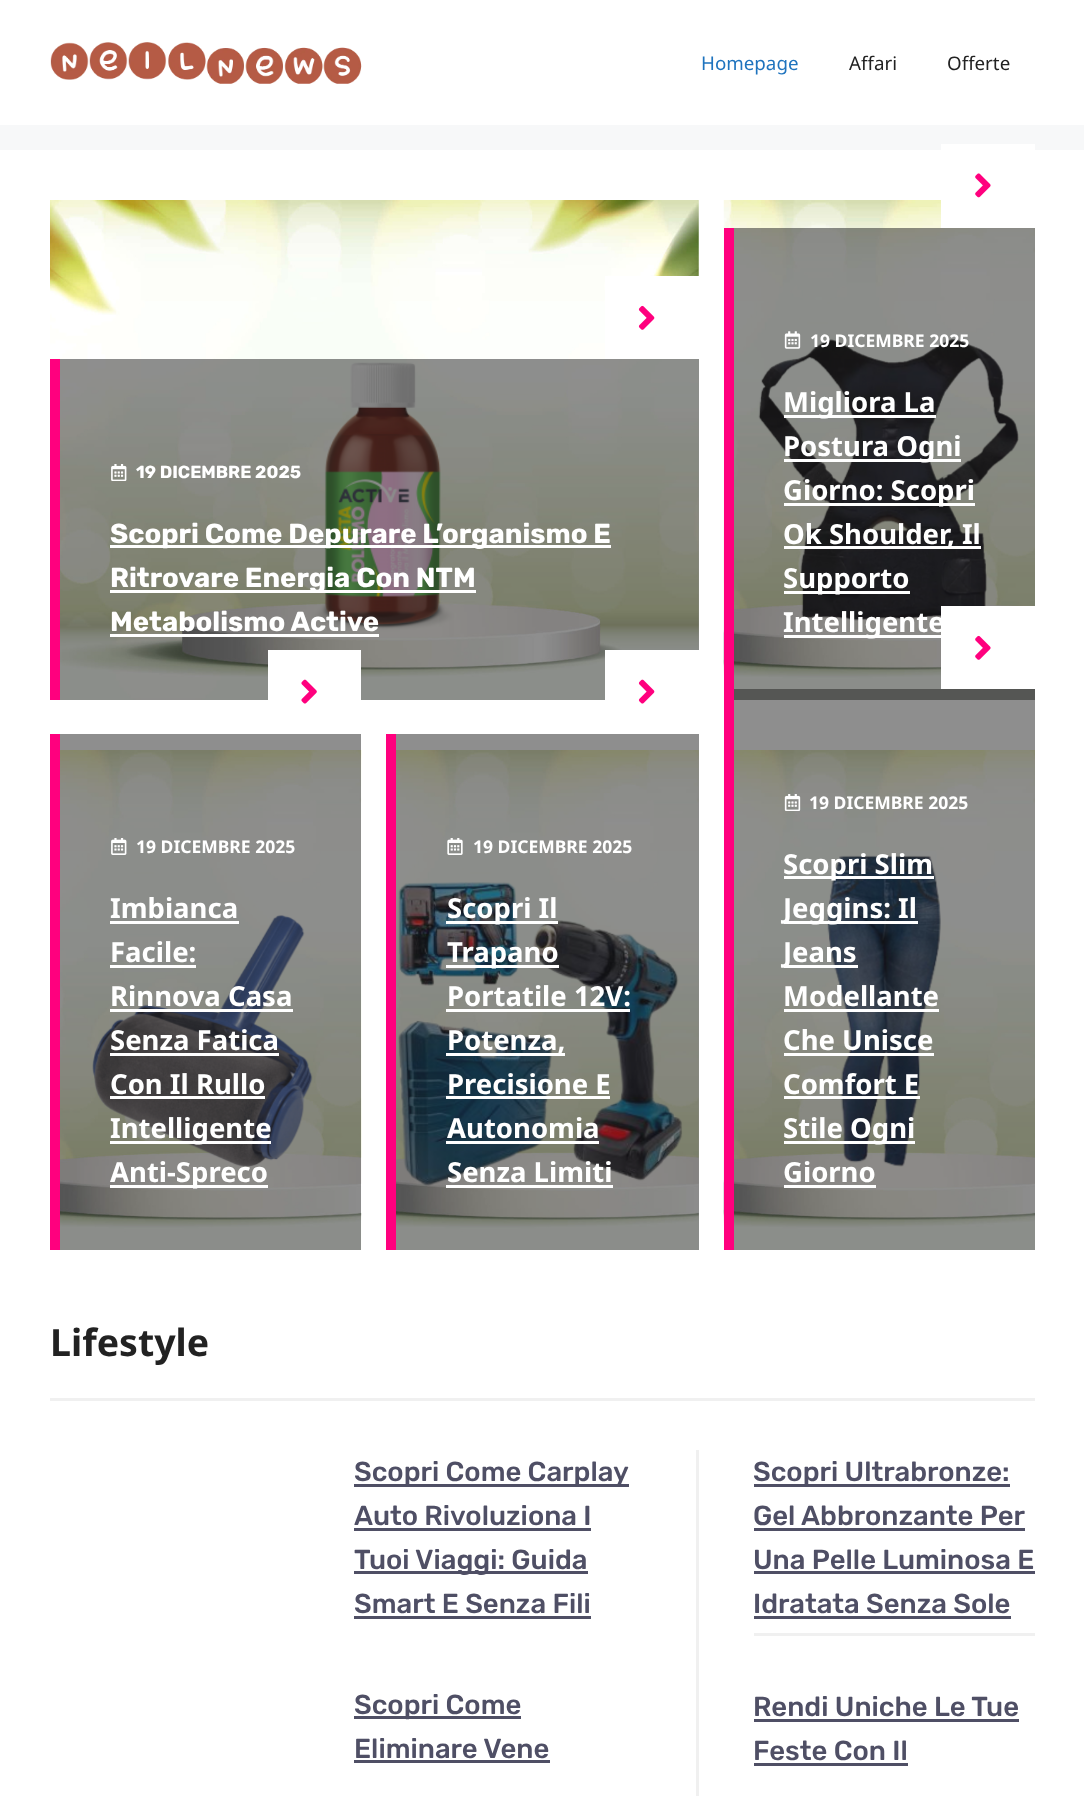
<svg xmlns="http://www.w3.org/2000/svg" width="1084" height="1796">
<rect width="100%" height="100%" fill="#f7f8f9"/>
<rect width="1084" height="125" fill="#fff"/>
<image x="50" y="42" width="312" height="42" href="media/1.png"/>
<text x="701" y="70" style="font-family:Noto Sans;font-size:18.75px;fill:#1e73be">Homepage</text>
<text x="849" y="70" style="font-family:Noto Sans;font-size:18.75px;fill:#222">Affari</text>
<text x="947" y="70" style="font-family:Noto Sans;font-size:18.75px;fill:#222">Offerte</text>
<rect y="150" width="1084" height="1646" fill="#fff"/>
<rect x="396" y="734" width="303" height="516" fill="#8e8e8e"/>
<rect x="60" y="734" width="301" height="16" fill="#8e8e8e"/>
<image x="50" y="200" width="649" height="500" href="media/2.png"/>
<rect x="605" y="276" width="94" height="83" fill="#fff"/>
<image x="638" y="305" width="17" height="25" href="media/3.png"/>
<rect x="60" y="359" width="639" height="341" fill="#21212182"/>
<rect x="50" y="359" width="10" height="341" fill="#ff007e"/>
<image x="111" y="464" width="16" height="17" href="media/4.png"/>
<text x="136" y="478" style="font-family:Rubik;font-size:17.5px;font-weight:bold;fill:#fff">19 DICEMBRE 2025</text>
<rect x="110" y="545" width="501" height="3" fill="#fff"/>
<text x="110" y="543" style="font-family:Rubik;font-size:27.5px;font-weight:bold;fill:#fff">Scopri Come Depurare L’organismo E</text>
<rect x="110" y="590" width="366" height="3" fill="#fff"/>
<text x="110" y="587" style="font-family:Rubik;font-size:27.5px;font-weight:bold;fill:#fff">Ritrovare Energia Con NTM</text>
<text x="110" y="631" style="font-family:Rubik;font-size:27.5px;font-weight:bold;fill:#fff">Metabolismo Active</text>
<rect x="110" y="634" width="269" height="3" fill="#fff"/>
<image x="723" y="200" width="312" height="500" href="media/5.png"/>
<rect x="941" y="144" width="94" height="84" fill="#fff"/>
<image x="975" y="173" width="16" height="25" href="media/6.png"/>
<image x="723" y="750" width="312" height="500" href="media/14.png"/>
<rect x="724" y="228" width="10" height="1022" fill="#ff007e"/>
<image x="784" y="331" width="17" height="18" href="media/7.png"/>
<text x="810" y="347" style="font-family:Noto Sans;font-size:17.5px;font-weight:bold;fill:#fff">19 DICEMBRE 2025</text>
<rect x="784" y="415" width="152" height="3" fill="#fff"/>
<text x="783" y="412" style="font-family:Noto Sans;font-size:27.5px;font-weight:bold;fill:#fff">Migliora La</text>
<rect x="784" y="459" width="177" height="3" fill="#fff"/>
<text x="783" y="456" style="font-family:Noto Sans;font-size:27.5px;font-weight:bold;fill:#fff">Postura Ogni</text>
<rect x="784" y="503" width="191" height="3" fill="#fff"/>
<text x="783" y="500" style="font-family:Noto Sans;font-size:27.5px;font-weight:bold;fill:#fff">Giorno: Scopri</text>
<rect x="784" y="546" width="197" height="3" fill="#fff"/>
<text x="783" y="544" style="font-family:Noto Sans;font-size:27.5px;font-weight:bold;fill:#fff">Ok Shoulder, Il</text>
<rect x="784" y="591" width="126" height="3" fill="#fff"/>
<text x="783" y="588" style="font-family:Noto Sans;font-size:27.5px;font-weight:bold;fill:#fff">Supporto</text>
<rect x="784" y="635" width="161" height="3" fill="#fff"/>
<text x="783" y="632" style="font-family:Noto Sans;font-size:27.5px;font-weight:bold;fill:#fff">Intelligente</text>
<image x="60" y="750" width="302" height="500" href="media/8.png"/>
<rect x="268" y="650" width="93" height="50" fill="#fff"/>
<image x="301" y="679" width="16" height="25" href="media/9.png"/>
<rect x="50" y="734" width="10" height="516" fill="#ff007e"/>
<image x="111" y="838" width="16" height="17" href="media/10.png"/>
<text x="136" y="853" style="font-family:Noto Sans;font-size:17.5px;font-weight:bold;fill:#fff">19 DICEMBRE 2025</text>
<text x="110" y="918" style="font-family:Noto Sans;font-size:27.5px;font-weight:bold;fill:#fff">Imbianca</text>
<rect x="110" y="921" width="129" height="3" fill="#fff"/>
<text x="110" y="962" style="font-family:Noto Sans;font-size:27.5px;font-weight:bold;fill:#fff">Facile:</text>
<rect x="110" y="965" width="86" height="3" fill="#fff"/>
<text x="110" y="1006" style="font-family:Noto Sans;font-size:27.5px;font-weight:bold;fill:#fff">Rinnova Casa</text>
<rect x="110" y="1009" width="183" height="3" fill="#fff"/>
<text x="110" y="1050" style="font-family:Noto Sans;font-size:27.5px;font-weight:bold;fill:#fff">Senza Fatica</text>
<rect x="110" y="1053" width="169" height="3" fill="#fff"/>
<text x="110" y="1094" style="font-family:Noto Sans;font-size:27.5px;font-weight:bold;fill:#fff">Con Il Rullo</text>
<rect x="110" y="1096" width="155" height="3" fill="#fff"/>
<rect x="110" y="1141" width="161" height="3" fill="#fff"/>
<text x="110" y="1138" style="font-family:Noto Sans;font-size:27.5px;font-weight:bold;fill:#fff">Intelligente</text>
<rect x="110" y="1185" width="158" height="3" fill="#fff"/>
<text x="110" y="1182" style="font-family:Noto Sans;font-size:27.5px;font-weight:bold;fill:#fff">Anti-Spreco</text>
<image x="396" y="750" width="303" height="500" href="media/11.png"/>
<rect x="605" y="650" width="94" height="50" fill="#fff"/>
<image x="638" y="679" width="17" height="25" href="media/12.png"/>
<rect x="386" y="734" width="10" height="516" fill="#ff007e"/>
<image x="447" y="838" width="16" height="17" href="media/13.png"/>
<text x="473" y="853" style="font-family:Noto Sans;font-size:17.5px;font-weight:bold;fill:#fff">19 DICEMBRE 2025</text>
<rect x="446" y="921" width="112" height="3" fill="#fff"/>
<text x="447" y="918" style="font-family:Noto Sans;font-size:27.5px;font-weight:bold;fill:#fff">Scopri Il</text>
<rect x="446" y="965" width="113" height="3" fill="#fff"/>
<text x="447" y="962" style="font-family:Noto Sans;font-size:27.5px;font-weight:bold;fill:#fff">Trapano</text>
<text x="447" y="1006" style="font-family:Noto Sans;font-size:27.5px;font-weight:bold;fill:#fff">Portatile 12V:</text>
<rect x="446" y="1009" width="184" height="3" fill="#fff"/>
<rect x="446" y="1053" width="119" height="3" fill="#fff"/>
<text x="447" y="1050" style="font-family:Noto Sans;font-size:27.5px;font-weight:bold;fill:#fff">Potenza,</text>
<text x="447" y="1094" style="font-family:Noto Sans;font-size:27.5px;font-weight:bold;fill:#fff">Precisione E</text>
<rect x="446" y="1096" width="164" height="3" fill="#fff"/>
<text x="447" y="1138" style="font-family:Noto Sans;font-size:27.5px;font-weight:bold;fill:#fff">Autonomia</text>
<rect x="446" y="1141" width="153" height="3" fill="#fff"/>
<text x="447" y="1182" style="font-family:Noto Sans;font-size:27.5px;font-weight:bold;fill:#fff">Senza Limiti</text>
<rect x="446" y="1185" width="167" height="3" fill="#fff"/>
<rect x="941" y="606" width="94" height="83" fill="#fff"/>
<image x="975" y="635" width="16" height="25" href="media/15.png"/>
<rect x="734" y="689" width="301" height="561" fill="#21212182"/>
<image x="784" y="794" width="17" height="17" href="media/16.png"/>
<text x="809" y="809" style="font-family:Noto Sans;font-size:17.5px;font-weight:bold;fill:#fff">19 DICEMBRE 2025</text>
<rect x="784" y="876" width="150" height="3" fill="#fff"/>
<text x="783" y="874" style="font-family:Noto Sans;font-size:27.5px;font-weight:bold;fill:#fff">Scopri Slim</text>
<rect x="784" y="921" width="134" height="3" fill="#fff"/>
<text x="783" y="918" style="font-family:Noto Sans;font-size:27.5px;font-weight:bold;fill:#fff">Jeggins: Il</text>
<rect x="784" y="965" width="74" height="3" fill="#fff"/>
<text x="783" y="962" style="font-family:Noto Sans;font-size:27.5px;font-weight:bold;fill:#fff">Jeans</text>
<text x="783" y="1006" style="font-family:Noto Sans;font-size:27.5px;font-weight:bold;fill:#fff">Modellante</text>
<rect x="784" y="1009" width="155" height="3" fill="#fff"/>
<text x="783" y="1050" style="font-family:Noto Sans;font-size:27.5px;font-weight:bold;fill:#fff">Che Unisce</text>
<rect x="784" y="1053" width="150" height="3" fill="#fff"/>
<text x="783" y="1094" style="font-family:Noto Sans;font-size:27.5px;font-weight:bold;fill:#fff">Comfort E</text>
<rect x="784" y="1096" width="136" height="3" fill="#fff"/>
<rect x="784" y="1141" width="131" height="3" fill="#fff"/>
<text x="783" y="1138" style="font-family:Noto Sans;font-size:27.5px;font-weight:bold;fill:#fff">Stile Ogni</text>
<text x="783" y="1182" style="font-family:Noto Sans;font-size:27.5px;font-weight:bold;fill:#fff">Giorno</text>
<rect x="784" y="1185" width="92" height="3" fill="#fff"/>
<rect x="50" y="1398" width="985" height="3" fill="#f0f0f0"/>
<text x="50" y="1356" style="font-family:Noto Sans;font-size:37.5px;font-weight:bold;fill:#222">Lifestyle</text>
<rect x="696" y="1450" width="3" height="346" fill="#f0f0f0"/>
<rect x="354" y="1484" width="275" height="3" fill="#4f4f65"/>
<text x="354" y="1481" style="font-family:Rubik;font-size:27.5px;font-weight:500;fill:#4f4f65">Scopri Come Carplay</text>
<text x="354" y="1525" style="font-family:Rubik;font-size:27.5px;font-weight:500;fill:#4f4f65">Auto Rivoluziona I</text>
<rect x="354" y="1528" width="237" height="3" fill="#4f4f65"/>
<rect x="354" y="1571" width="234" height="3" fill="#4f4f65"/>
<text x="354" y="1569" style="font-family:Rubik;font-size:27.5px;font-weight:500;fill:#4f4f65">Tuoi Viaggi: Guida</text>
<text x="354" y="1613" style="font-family:Rubik;font-size:27.5px;font-weight:500;fill:#4f4f65">Smart E Senza Fili</text>
<rect x="354" y="1616" width="237" height="3" fill="#4f4f65"/>
<rect x="354" y="1716" width="167" height="3" fill="#4f4f65"/>
<text x="354" y="1714" style="font-family:Rubik;font-size:27.5px;font-weight:500;fill:#4f4f65">Scopri Come</text>
<text x="354" y="1758" style="font-family:Rubik;font-size:27.5px;font-weight:500;fill:#4f4f65">Eliminare Vene</text>
<rect x="354" y="1760" width="196" height="3" fill="#4f4f65"/>
<rect x="754" y="1633" width="281" height="3" fill="#f0f0f0"/>
<rect x="754" y="1484" width="256" height="3" fill="#4f4f65"/>
<text x="753" y="1481" style="font-family:Rubik;font-size:27.5px;font-weight:500;fill:#4f4f65">Scopri Ultrabronze:</text>
<text x="753" y="1525" style="font-family:Rubik;font-size:27.5px;font-weight:500;fill:#4f4f65">Gel Abbronzante Per</text>
<rect x="754" y="1528" width="271" height="3" fill="#4f4f65"/>
<text x="753" y="1569" style="font-family:Rubik;font-size:27.5px;font-weight:500;fill:#4f4f65">Una Pelle Luminosa E</text>
<rect x="754" y="1571" width="281" height="3" fill="#4f4f65"/>
<text x="753" y="1613" style="font-family:Rubik;font-size:27.5px;font-weight:500;fill:#4f4f65">Idratata Senza Sole</text>
<rect x="754" y="1616" width="257" height="3" fill="#4f4f65"/>
<text x="753" y="1716" style="font-family:Rubik;font-size:27.5px;font-weight:500;fill:#4f4f65">Rendi Uniche Le Tue</text>
<rect x="754" y="1719" width="265" height="3" fill="#4f4f65"/>
<text x="753" y="1760" style="font-family:Rubik;font-size:27.5px;font-weight:500;fill:#4f4f65">Feste Con Il</text>
<rect x="754" y="1763" width="154" height="3" fill="#4f4f65"/>
</svg>
